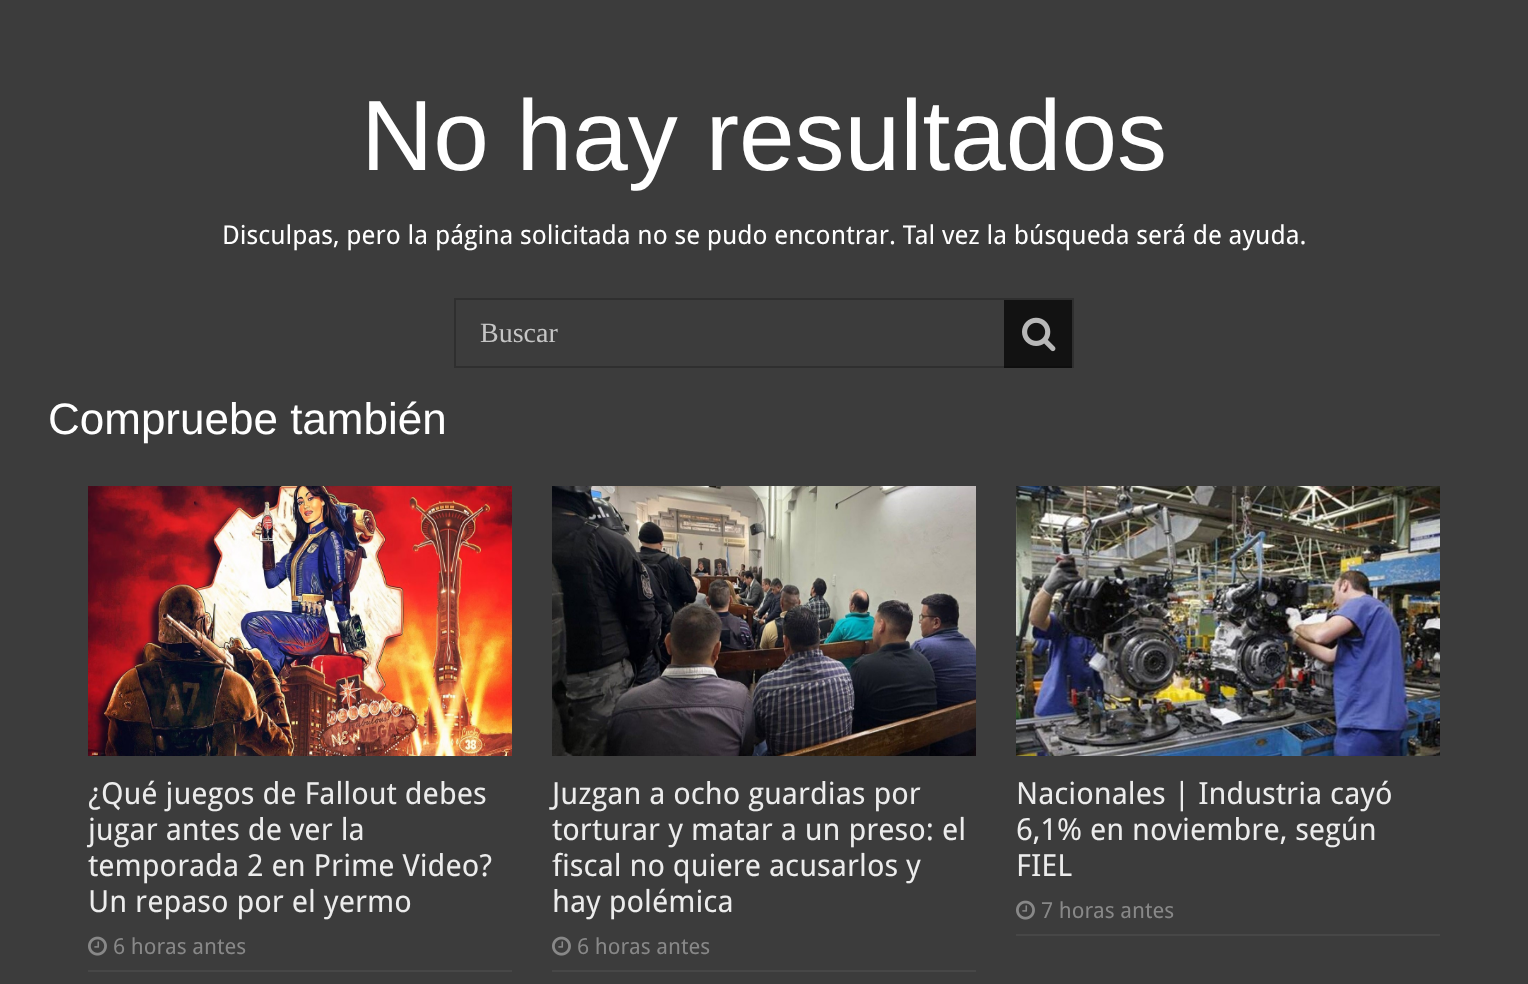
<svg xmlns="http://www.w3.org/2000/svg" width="1528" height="984">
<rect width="100%" height="100%" fill="#3c3c3c"/>
<text x="361" y="170" style="font-family:Liberation Sans;font-size:100px;fill:#fff">No hay resultados</text>
<text x="222" y="244" style="font-family:Droid Sans;font-size:26px;fill:#fff">Disculpas, pero la página solicitada no se pudo encontrar. Tal vez la búsqueda será de ayuda.</text>
<rect x="455" y="299" width="618" height="68" fill="none" stroke="#2f2f2f" stroke-width="2"/>
<text x="480" y="342" style="font-family:Liberation Serif;font-size:28px;fill:#c5c5c5">Buscar</text>
<rect x="1004" y="300" width="68" height="68" fill="#000000b3"/>
<image x="1022" y="317" width="34" height="35" href="media/1.png"/>
<text x="48" y="434" style="font-family:Liberation Sans;font-size:44px;fill:#fff">Compruebe también</text>
<image x="88" y="486" width="424" height="270" href="media/2.png"/>
<text x="88" y="804" style="font-family:Droid Sans;font-size:30.4px;fill:#ececec">¿Qué juegos de Fallout debes</text>
<text x="88" y="840" style="font-family:Droid Sans;font-size:30.4px;fill:#ececec">jugar antes de ver la</text>
<text x="88" y="876" style="font-family:Droid Sans;font-size:30.4px;fill:#ececec">temporada 2 en Prime Video?</text>
<text x="88" y="912" style="font-family:Droid Sans;font-size:30.4px;fill:#ececec">Un repaso por el yermo</text>
<rect x="88" y="970" width="424" height="2" fill="#474747"/>
<image x="88" y="936" width="19" height="20" href="media/3.png"/>
<text x="113" y="954" style="font-family:Droid Sans;font-size:22px;fill:#888">6 horas antes</text>
<image x="552" y="486" width="424" height="270" href="media/4.png"/>
<text x="552" y="804" style="font-family:Droid Sans;font-size:30.4px;fill:#ececec">Juzgan a ocho guardias por</text>
<text x="552" y="840" style="font-family:Droid Sans;font-size:30.4px;fill:#ececec">torturar y matar a un preso: el</text>
<text x="552" y="876" style="font-family:Droid Sans;font-size:30.4px;fill:#ececec">fiscal no quiere acusarlos y</text>
<text x="552" y="912" style="font-family:Droid Sans;font-size:30.4px;fill:#ececec">hay polémica</text>
<rect x="552" y="970" width="424" height="2" fill="#474747"/>
<image x="552" y="936" width="19" height="20" href="media/3.png"/>
<text x="577" y="954" style="font-family:Droid Sans;font-size:22px;fill:#888">6 horas antes</text>
<image x="1016" y="486" width="424" height="270" href="media/5.png"/>
<text x="1016" y="804" style="font-family:Droid Sans;font-size:30.4px;fill:#ececec">Nacionales | Industria cayó</text>
<text x="1016" y="840" style="font-family:Droid Sans;font-size:30.4px;fill:#ececec">6,1% en noviembre, según</text>
<text x="1016" y="876" style="font-family:Droid Sans;font-size:30.4px;fill:#ececec">FIEL</text>
<rect x="1016" y="934" width="424" height="2" fill="#474747"/>
<image x="1016" y="900" width="19" height="20" href="media/3.png"/>
<text x="1041" y="918" style="font-family:Droid Sans;font-size:22px;fill:#888">7 horas antes</text>
</svg>
